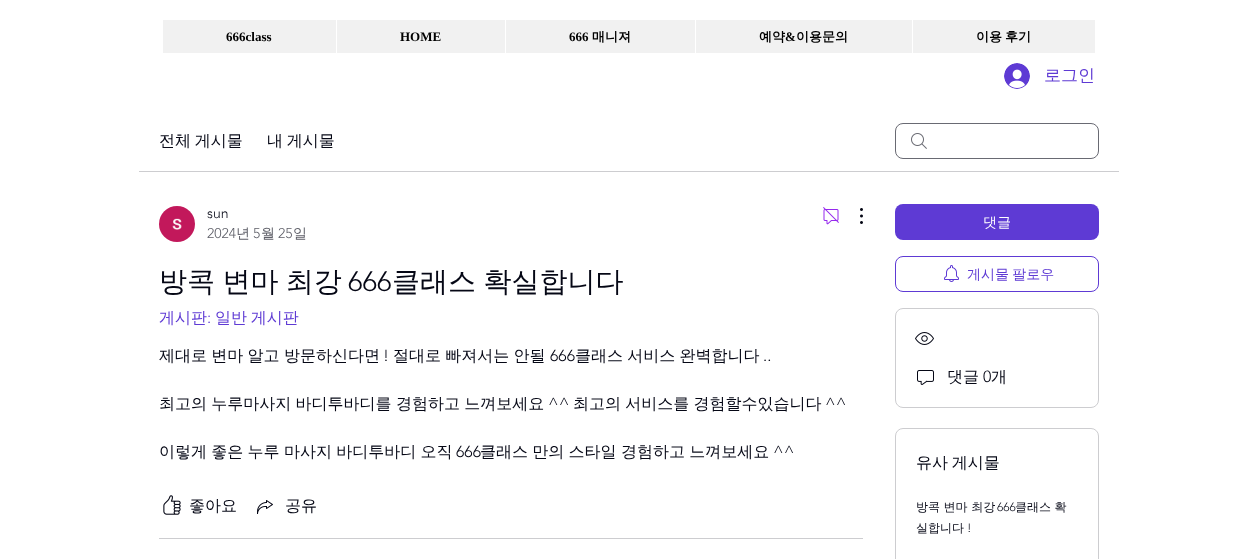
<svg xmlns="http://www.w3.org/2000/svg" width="1257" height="559">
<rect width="100%" height="100%" fill="#fff"/>
<rect x="163" y="20" width="932" height="33" fill="#f1f1f1"/>
<text x="226" y="41" style="font-family:Liberation Serif;font-size:13px;font-weight:bold;fill:#000">666class</text>
<rect x="336" y="20" width="1" height="33" fill="#fff"/>
<text x="400" y="41" style="font-family:Liberation Serif;font-size:13px;font-weight:bold;fill:#000">HOME</text>
<rect x="505" y="20" width="1" height="33" fill="#fff"/>
<text x="569" y="41" style="font-family:Liberation Serif;font-size:13px;font-weight:bold;fill:#000">666</text>
<text x="592" y="41" style="font-family:WenQuanYi Zen Hei;font-size:13px;font-weight:bold;fill:#000">매니져</text>
<rect x="695" y="20" width="1" height="33" fill="#fff"/>
<text x="759" y="41" style="font-family:WenQuanYi Zen Hei;font-size:13px;font-weight:bold;fill:#000">예약</text>
<text x="785" y="41" style="font-family:Liberation Serif;font-size:13px;font-weight:bold;fill:#000">&amp;</text>
<text x="796" y="41" style="font-family:WenQuanYi Zen Hei;font-size:13px;font-weight:bold;fill:#000">이용문의</text>
<rect x="912" y="20" width="1" height="33" fill="#fff"/>
<text x="976" y="41" word-spacing="-1" style="font-family:WenQuanYi Zen Hei;font-size:13px;font-weight:bold;fill:#000">이용 후기</text>
<image x="1004" y="63" width="26" height="26" href="media/1.png"/>
<text x="1044" y="81" style="font-family:WenQuanYi Zen Hei;font-size:17px;font-weight:500;fill:#5e3ad4">로그인</text>
<rect x="139" y="171" width="980" height="1" fill="#cdcdd0"/>
<text x="159" y="146" word-spacing="-1" style="font-family:WenQuanYi Zen Hei;font-size:16px;font-weight:500;fill:#050715">전체 게시물</text>
<text x="267" y="146" word-spacing="-1" style="font-family:WenQuanYi Zen Hei;font-size:16px;font-weight:500;fill:#050715">내 게시물</text>
<image x="911" y="133" width="16" height="16" href="media/2.png"/>
<rect x="895.5" y="123.5" width="203" height="35" rx="7.5" fill="none" stroke="#696a73"/>
<image x="159" y="206" width="36" height="36" href="media/3.png"/>
<text x="207" y="218" style="font-family:'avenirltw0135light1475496';font-size:14px;font-weight:300;fill:#050715">sun</text>
<text x="207" y="238" style="font-family:'avenirltw0135light1475496';font-size:14px;font-weight:300;fill:#5f6069">2024</text>
<text x="236" y="238" style="font-family:WenQuanYi Zen Hei;font-size:14px;font-weight:500;fill:#5f6069">년</text>
<text x="253" y="238" style="font-family:'avenirltw0135light1475496';font-size:14px;font-weight:300;fill:#5f6069">5</text>
<text x="261" y="238" style="font-family:WenQuanYi Zen Hei;font-size:14px;font-weight:500;fill:#5f6069">월</text>
<text x="278" y="238" style="font-family:'avenirltw0135light1475496';font-size:14px;font-weight:300;fill:#5f6069">25</text>
<text x="293" y="238" style="font-family:WenQuanYi Zen Hei;font-size:14px;font-weight:500;fill:#5f6069">일</text>
<image x="823" y="207" width="16" height="18" href="media/4.png"/>
<image x="860" y="208" width="3" height="16" href="media/5.png"/>
<text x="159" y="291" word-spacing="-1" style="font-family:WenQuanYi Zen Hei;font-size:28px;font-weight:500;fill:#050715">방콕 변마 최강</text>
<text x="348" y="291" style="font-family:'avenirltw0135light1475496';font-size:28px;font-weight:300;fill:#050715">666</text>
<text x="392" y="291" word-spacing="-1" style="font-family:WenQuanYi Zen Hei;font-size:28px;font-weight:500;fill:#050715">클래스 확실합니다</text>
<text x="159" y="323" style="font-family:WenQuanYi Zen Hei;font-size:16px;font-weight:500;fill:#5e3ad4">게시판</text>
<text x="207" y="323" style="font-family:'avenirltw0135light1475496';font-size:16px;font-weight:300;fill:#5e3ad4">:</text>
<text x="215" y="323" word-spacing="-1" style="font-family:WenQuanYi Zen Hei;font-size:16px;font-weight:500;fill:#5e3ad4">일반 게시판</text>
<text x="159" y="361" word-spacing="-0.5" style="font-family:WenQuanYi Zen Hei;font-size:16px;font-weight:500;fill:#050715">제대로 변마 알고 방문하신다면</text>
<text x="383" y="361" style="font-family:'avenirltw0135light1475496';font-size:16px;font-weight:300;fill:#050715">!</text>
<text x="393" y="361" word-spacing="-0.5" style="font-family:WenQuanYi Zen Hei;font-size:16px;font-weight:500;fill:#050715">절대로 빠져서는 안될</text>
<text x="550" y="361" style="font-family:'avenirltw0135light1475496';font-size:16px;font-weight:300;fill:#050715">666</text>
<text x="575" y="361" word-spacing="-0.5" style="font-family:WenQuanYi Zen Hei;font-size:16px;font-weight:500;fill:#050715">클래스 서비스 완벽합니다</text>
<text x="763" y="361" style="font-family:'avenirltw0135light1475496';font-size:16px;font-weight:300;fill:#050715">..</text>
<text x="159" y="409" word-spacing="-0.5" style="font-family:WenQuanYi Zen Hei;font-size:16px;font-weight:500;fill:#050715">최고의 누루마사지 바디투바디를 경험하고 느껴보세요</text>
<text x="548" y="409" style="font-family:'avenirltw0135light1475496';font-size:16px;font-weight:300;fill:#050715">^^</text>
<text x="573" y="409" word-spacing="-0.5" style="font-family:WenQuanYi Zen Hei;font-size:16px;font-weight:500;fill:#050715">최고의 서비스를 경험할수있습니다</text>
<text x="825" y="409" style="font-family:'avenirltw0135light1475496';font-size:16px;font-weight:300;fill:#050715">^^</text>
<text x="159" y="457" word-spacing="-0.5" style="font-family:WenQuanYi Zen Hei;font-size:16px;font-weight:500;fill:#050715">이렇게 좋은 누루 마사지 바디투바디 오직</text>
<text x="456" y="457" style="font-family:'avenirltw0135light1475496';font-size:16px;font-weight:300;fill:#050715">666</text>
<text x="480" y="457" word-spacing="-0.5" style="font-family:WenQuanYi Zen Hei;font-size:16px;font-weight:500;fill:#050715">클래스 만의 스타일 경험하고 느껴보세요</text>
<text x="773" y="457" style="font-family:'avenirltw0135light1475496';font-size:16px;font-weight:300;fill:#050715">^^</text>
<image x="163" y="495" width="18" height="20" href="media/6.png"/>
<text x="189" y="511" style="font-family:WenQuanYi Zen Hei;font-size:16px;font-weight:500;fill:#050715">좋아요</text>
<image x="257" y="500" width="16" height="14" href="media/7.png"/>
<text x="285" y="511" style="font-family:WenQuanYi Zen Hei;font-size:16px;font-weight:500;fill:#050715">공유</text>
<rect x="159" y="538" width="704" height="1" fill="#cdcdd0"/>
<rect x="895" y="204" width="204" height="36" rx="8" fill="#5e3ad4"/>
<text x="983" y="227" style="font-family:WenQuanYi Zen Hei;font-size:14px;font-weight:500;fill:#fff">댓글</text>
<rect x="895.5" y="256.5" width="203" height="35" rx="7.5" fill="none" stroke="#5e3ad4"/>
<image x="944" y="265" width="15" height="17" href="media/8.png"/>
<text x="967" y="279" word-spacing="-1" style="font-family:WenQuanYi Zen Hei;font-size:14px;font-weight:500;fill:#5e3ad4">게시물 팔로우</text>
<rect x="895.5" y="308.5" width="203" height="99" rx="7.5" fill="none" stroke="#cdcdd0"/>
<image x="915" y="332" width="19" height="13" href="media/9.png"/>
<image x="917" y="370" width="17" height="15" href="media/10.png"/>
<text x="947" y="382" style="font-family:WenQuanYi Zen Hei;font-size:16px;font-weight:500;fill:#050715">댓글</text>
<text x="983" y="382" style="font-family:'avenirltw0135light1475496';font-size:16px;font-weight:300;fill:#050715">0</text>
<text x="991" y="382" style="font-family:WenQuanYi Zen Hei;font-size:16px;font-weight:500;fill:#050715">개</text>
<rect x="895.5" y="428.5" width="203" height="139" rx="7.5" fill="none" stroke="#cdcdd0"/>
<text x="916" y="468" word-spacing="-1" style="font-family:WenQuanYi Zen Hei;font-size:16px;font-weight:500;fill:#050715">유사 게시물</text>
<text x="916" y="511" style="font-family:WenQuanYi Zen Hei;font-size:12px;font-weight:500;fill:#050715">방콕 변마 최강</text>
<text x="997" y="511" style="font-family:'avenirltw0135light1475496';font-size:12px;font-weight:300;fill:#050715">666</text>
<text x="1015" y="511" style="font-family:WenQuanYi Zen Hei;font-size:12px;font-weight:500;fill:#050715">클래스 확</text>
<text x="916" y="532" style="font-family:WenQuanYi Zen Hei;font-size:12px;font-weight:500;fill:#050715">실합니다</text>
<text x="967" y="532" style="font-family:'avenirltw0135light1475496';font-size:12px;font-weight:300;fill:#050715">!</text>
</svg>
